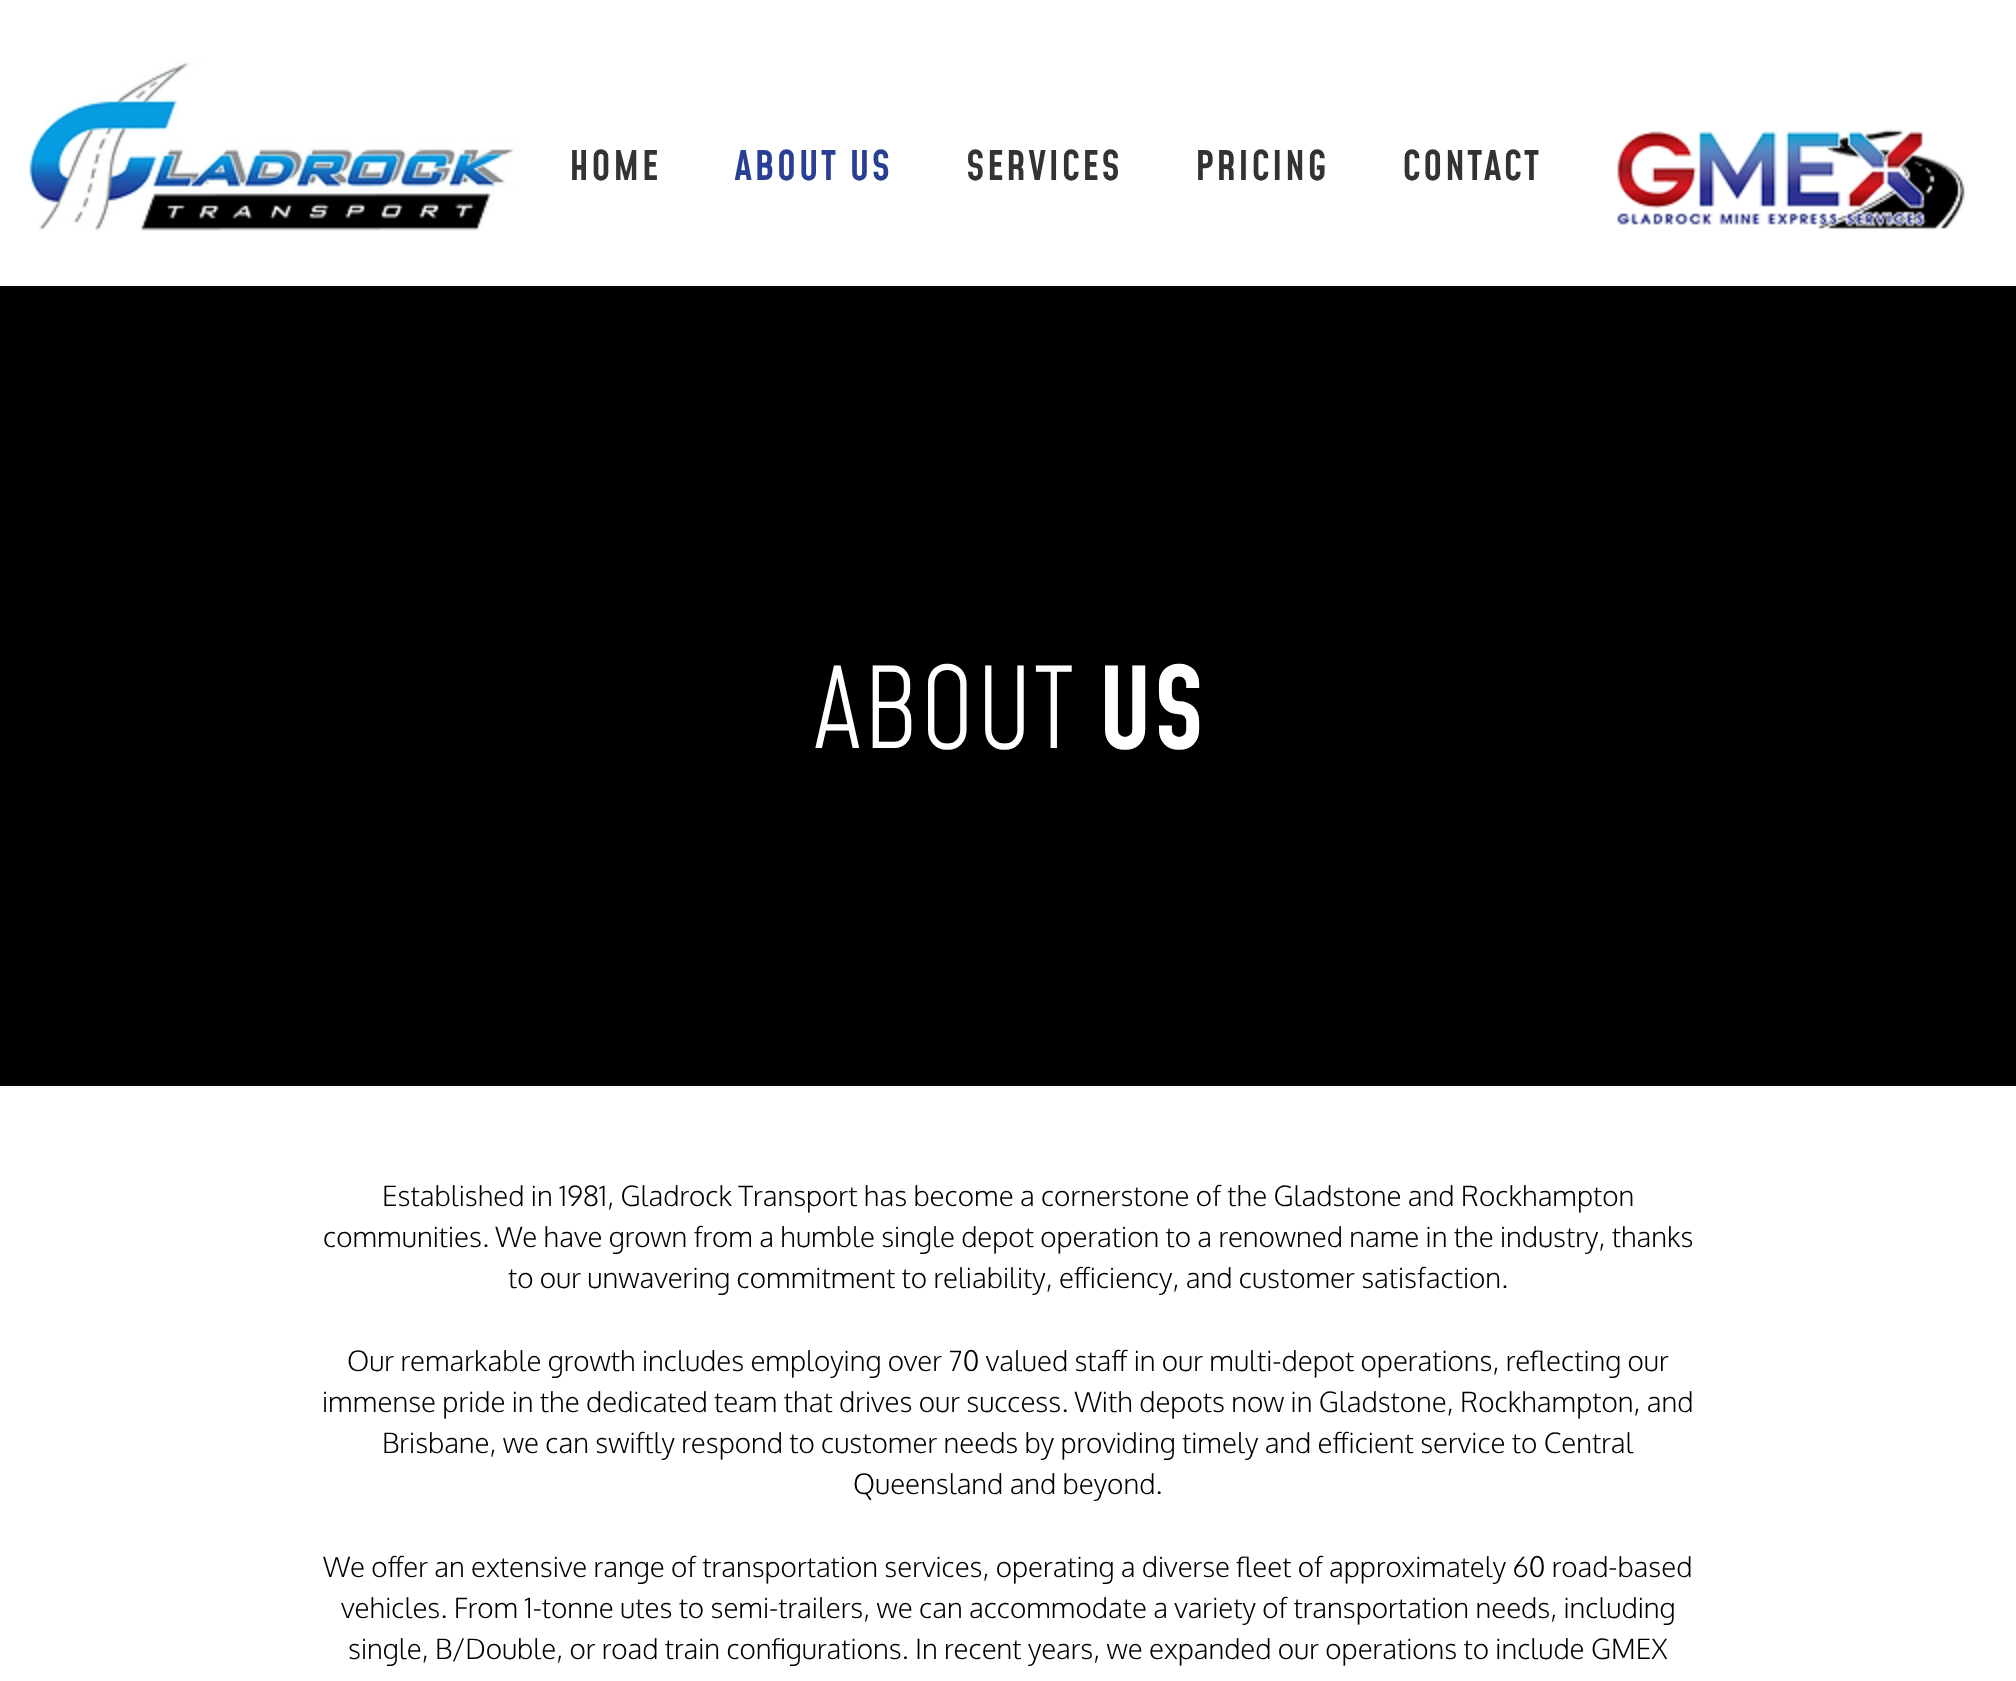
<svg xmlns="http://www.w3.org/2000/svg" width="2016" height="1681">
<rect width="100%" height="100%" fill="#fff"/>
<image x="28" y="56" width="493" height="176" href="media/1.png"/>
<text x="569" y="180" style="font-family:Mohave;font-size:40px;font-weight:500;letter-spacing:2px;fill:#333">HOME</text>
<text x="734" y="180" style="font-family:Mohave;font-size:40px;font-weight:500;letter-spacing:2px;fill:#293f94">ABOUT US</text>
<text x="966" y="180" style="font-family:Mohave;font-size:40px;font-weight:500;letter-spacing:2px;fill:#333">SERVICES</text>
<text x="1195" y="180" style="font-family:Mohave;font-size:40px;font-weight:500;letter-spacing:2px;fill:#333">PRICING</text>
<text x="1402" y="180" style="font-family:Mohave;font-size:40px;font-weight:500;letter-spacing:2px;fill:#333">CONTACT</text>
<image x="1617" y="129" width="348" height="101" href="media/2.png"/>
<rect y="286" width="2016" height="800" fill="#000"/>
<text x="812" y="748" style="font-family:Mohave;font-size:110px;font-weight:300;fill:#fff">ABOUT</text>
<text x="1097" y="748" style="font-family:Mohave;font-size:110px;font-weight:500;fill:#fff">US</text>
<text x="382" y="1206" style="font-family:Oxygen;font-size:28px;font-weight:300;fill:#000">Established in 1981, Gladrock Transport has become a cornerstone of the Gladstone and Rockhampton</text>
<text x="323" y="1247" style="font-family:Oxygen;font-size:28px;font-weight:300;fill:#000">communities. We have grown from a humble single depot operation to a renowned name in the industry, thanks</text>
<text x="508" y="1288" style="font-family:Oxygen;font-size:28px;font-weight:300;fill:#000">to our unwavering commitment to reliability, efficiency, and customer satisfaction.</text>
<text x="347" y="1371" style="font-family:Oxygen;font-size:28px;font-weight:300;fill:#000">Our remarkable growth includes employing over 70 valued staff in our multi-depot operations, reflecting our</text>
<text x="322" y="1412" style="font-family:Oxygen;font-size:28px;font-weight:300;fill:#000">immense pride in the dedicated team that drives our success. With depots now in Gladstone, Rockhampton, and</text>
<text x="382" y="1453" style="font-family:Oxygen;font-size:28px;font-weight:300;fill:#000">Brisbane, we can swiftly respond to customer needs by providing timely and efficient service to Central</text>
<text x="853" y="1494" style="font-family:Oxygen;font-size:28px;font-weight:300;fill:#000">Queensland and beyond.</text>
<text x="323" y="1577" style="font-family:Oxygen;font-size:28px;font-weight:300;fill:#000">We offer an extensive range of transportation services, operating a diverse fleet of approximately 60 road-based</text>
<text x="341" y="1618" style="font-family:Oxygen;font-size:28px;font-weight:300;fill:#000">vehicles. From 1-tonne utes to semi-trailers, we can accommodate a variety of transportation needs, including</text>
<text x="348" y="1659" style="font-family:Oxygen;font-size:28px;font-weight:300;fill:#000">single, B/Double, or road train configurations. In recent years, we expanded our operations to include GMEX</text>
</svg>
